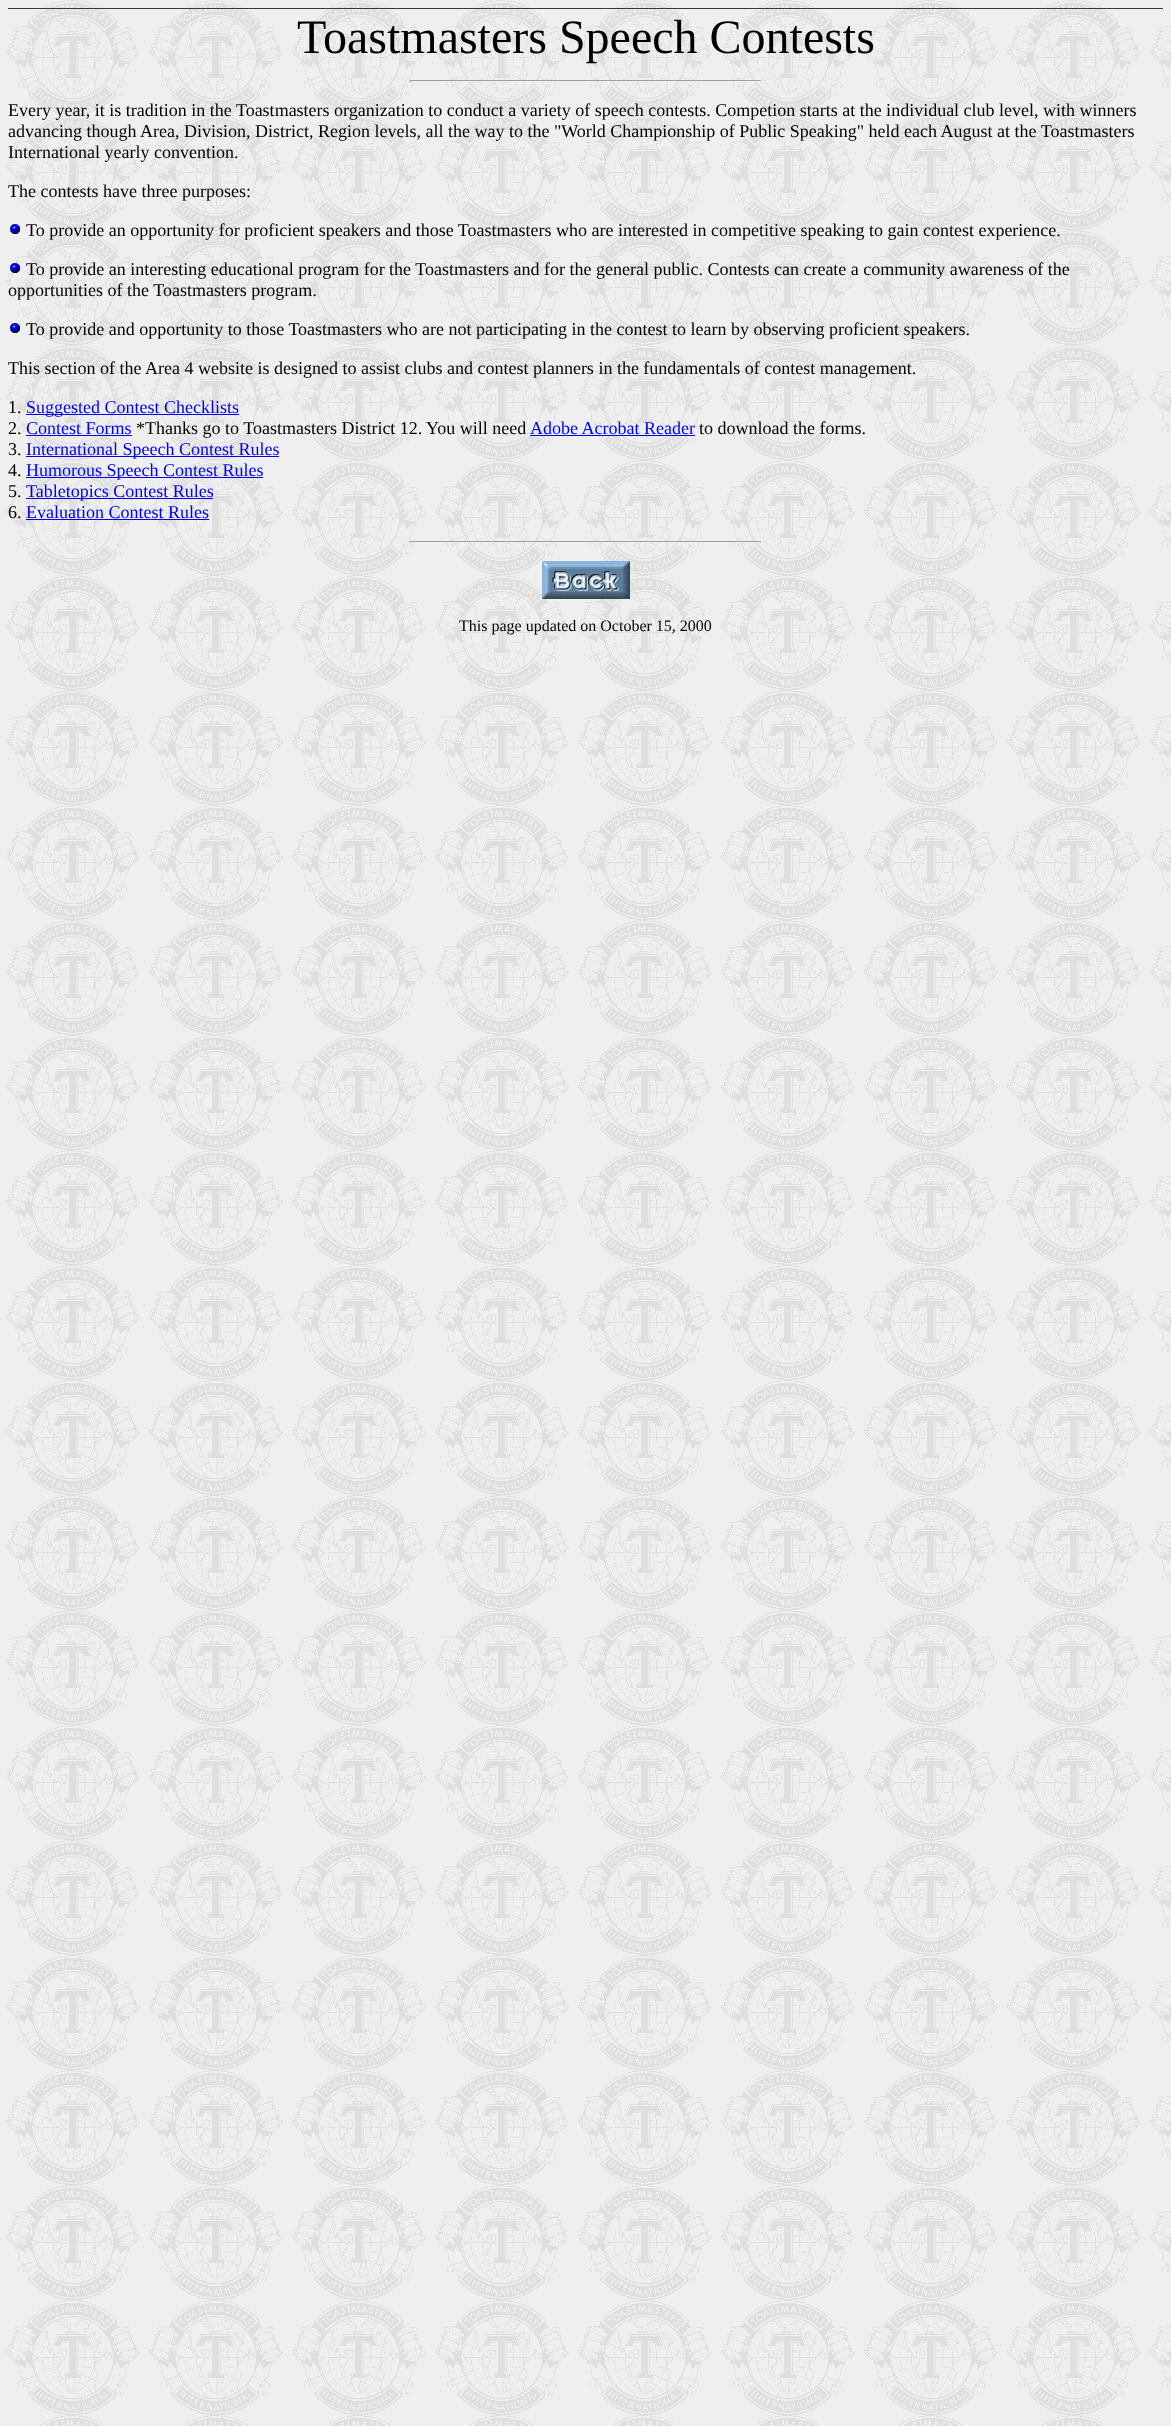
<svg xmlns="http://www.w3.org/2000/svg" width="1171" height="2426">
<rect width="100%" height="100%" fill="#fff"/>
<image x="0" y="0" width="1171" height="2426" href="media/1.png"/>
<rect x="8" y="8" width="1155" height="1" fill="#393939"/>
<text x="297" y="53" style="font-family:Liberation Serif;font-size:48px;fill:#000">Toastmasters Speech Contests</text>
<rect x="410" y="80" width="352" height="1" fill="#9f9f9f"/>
<rect x="761" y="80" width="1" height="2" fill="#eee"/>
<rect x="410" y="81" width="352" height="1" fill="#eee"/>
<rect x="410" y="80" width="1" height="2" fill="#9f9f9f"/>
<text x="8" y="116" style="font-family:Liberation Serif;font-size:18px;fill:#000">Every year, it is tradition in the Toastmasters organization to conduct a variety of speech contests. Competion starts at the individual club level, with winners</text>
<text x="8" y="137" style="font-family:Liberation Serif;font-size:18px;fill:#000">advancing though Area, Division, District, Region levels, all the way to the "World Championship of Public Speaking" held each August at the Toastmasters</text>
<text x="8" y="158" style="font-family:Liberation Serif;font-size:18px;fill:#000">International yearly convention.</text>
<text x="8" y="197" style="font-family:Liberation Serif;font-size:18px;fill:#000">The contests have three purposes:</text>
<image x="10" y="224" width="10" height="10" href="media/2.png"/>
<text x="26" y="236" style="font-family:Liberation Serif;font-size:18px;fill:#000">To provide an opportunity for proficient speakers and those Toastmasters who are interested in competitive speaking to gain contest experience.</text>
<image x="10" y="263" width="10" height="10" href="media/2.png"/>
<text x="26" y="275" style="font-family:Liberation Serif;font-size:18px;fill:#000">To provide an interesting educational program for the Toastmasters and for the general public. Contests can create a community awareness of the</text>
<text x="8" y="296" style="font-family:Liberation Serif;font-size:18px;fill:#000">opportunities of the Toastmasters program.</text>
<image x="10" y="323" width="10" height="10" href="media/2.png"/>
<text x="26" y="335" style="font-family:Liberation Serif;font-size:18px;fill:#000">To provide and opportunity to those Toastmasters who are not participating in the contest to learn by observing proficient speakers.</text>
<text x="8" y="374" style="font-family:Liberation Serif;font-size:18px;fill:#000">This section of the Area 4 website is designed to assist clubs and contest planners in the fundamentals of contest management.</text>
<text x="8" y="413" style="font-family:Liberation Serif;font-size:18px;fill:#000">1.</text>
<rect x="26" y="414" width="213" height="1" fill="#00e"/>
<text x="26" y="413" style="font-family:Liberation Serif;font-size:18px;fill:#00e">Suggested Contest Checklists</text>
<text x="8" y="434" style="font-family:Liberation Serif;font-size:18px;fill:#000">2.</text>
<text x="26" y="434" style="font-family:Liberation Serif;font-size:18px;fill:#00e">Contest Forms</text>
<rect x="26" y="435" width="106" height="1" fill="#00e"/>
<text x="136" y="434" style="font-family:Liberation Serif;font-size:18px;fill:#000">*Thanks go to Toastmasters District 12.</text>
<text x="426" y="434" style="font-family:Liberation Serif;font-size:18px;fill:#000">You will need</text>
<text x="530" y="434" style="font-family:Liberation Serif;font-size:18px;fill:#00e">Adobe Acrobat Reader</text>
<rect x="530" y="435" width="165" height="1" fill="#00e"/>
<text x="699" y="434" style="font-family:Liberation Serif;font-size:18px;fill:#000">to download the forms.</text>
<text x="8" y="455" style="font-family:Liberation Serif;font-size:18px;fill:#000">3.</text>
<rect x="26" y="456" width="253" height="1" fill="#00e"/>
<text x="26" y="455" style="font-family:Liberation Serif;font-size:18px;fill:#00e">International Speech Contest Rules</text>
<text x="8" y="476" style="font-family:Liberation Serif;font-size:18px;fill:#000">4.</text>
<rect x="26" y="477" width="237" height="1" fill="#00e"/>
<text x="26" y="476" style="font-family:Liberation Serif;font-size:18px;fill:#00e">Humorous Speech Contest Rules</text>
<text x="8" y="497" style="font-family:Liberation Serif;font-size:18px;fill:#000">5.</text>
<rect x="26" y="498" width="187" height="1" fill="#00e"/>
<text x="26" y="497" style="font-family:Liberation Serif;font-size:18px;fill:#00e">Tabletopics Contest Rules</text>
<text x="8" y="518" style="font-family:Liberation Serif;font-size:18px;fill:#000">6.</text>
<text x="26" y="518" style="font-family:Liberation Serif;font-size:18px;fill:#00e">Evaluation Contest Rules</text>
<rect x="26" y="519" width="183" height="1" fill="#00e"/>
<rect x="410" y="541" width="352" height="1" fill="#9f9f9f"/>
<rect x="761" y="541" width="1" height="2" fill="#eee"/>
<rect x="410" y="542" width="352" height="1" fill="#eee"/>
<rect x="410" y="541" width="1" height="2" fill="#9f9f9f"/>
<image x="542" y="561" width="88" height="38" href="media/3.png"/>
<text x="459" y="631" style="font-family:Liberation Serif;font-size:16px;fill:#000">This page updated on October 15, 2000</text>
</svg>
